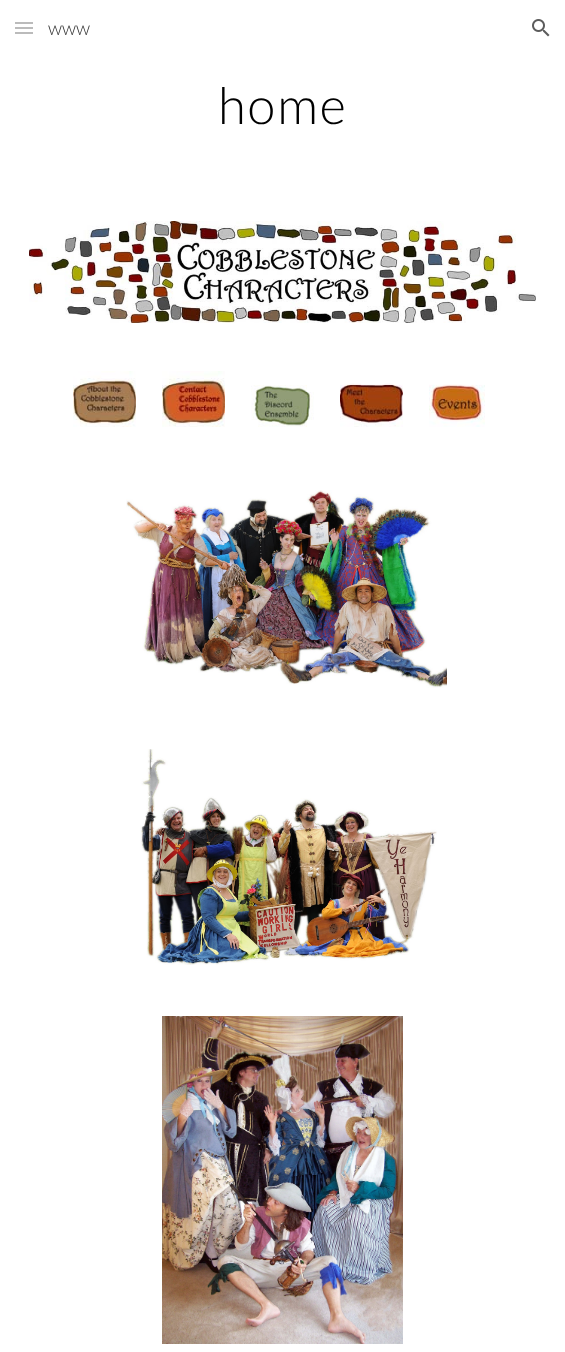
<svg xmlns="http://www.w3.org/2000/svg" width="565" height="1352">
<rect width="100%" height="100%" fill="#fff"/>
<rect x="15" y="22" width="18" height="2" fill="#bbb"/>
<rect x="15" y="27" width="18" height="2" fill="#bbb"/>
<rect x="15" y="32" width="18" height="2" fill="#bbb"/>
<text x="48" y="35" style="font-family:Lato;font-size:19px;font-weight:300;fill:#333">www</text>
<image x="532" y="19" width="18" height="18" href="media/1.png"/>
<text x="218" y="124" style="font-family:Lato;font-size:51px;font-weight:300;letter-spacing:2px;fill:#000">home</text>
<image x="29" y="221" width="507" height="102" href="media/2.png"/>
<image x="73" y="371" width="63" height="56" href="media/3.png"/>
<image x="162" y="371" width="63" height="56" href="media/4.png"/>
<image x="251" y="385" width="63" height="42" href="media/5.png"/>
<image x="340" y="383" width="63" height="44" href="media/6.png"/>
<image x="429" y="384" width="56" height="43" href="media/7.png"/>
<image x="126" y="490" width="321" height="198" href="media/8.png"/>
<image x="140" y="749" width="297" height="216" href="media/9.png"/>
<image x="162" y="1016" width="241" height="328" href="media/10.png"/>
</svg>
